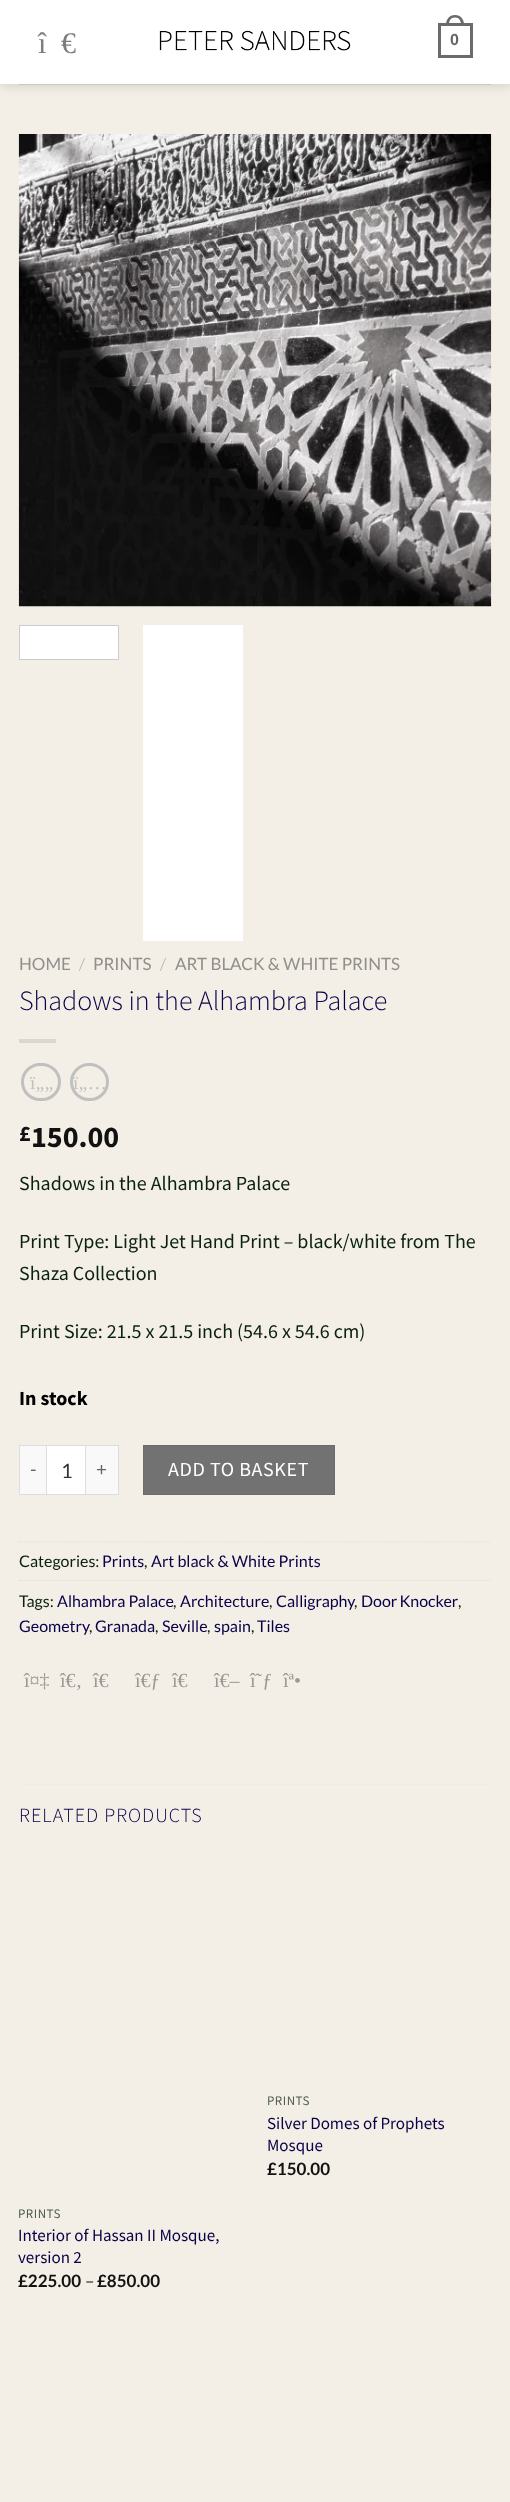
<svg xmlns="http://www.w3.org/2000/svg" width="510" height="2502">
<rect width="100%" height="100%" fill="#f3efe6"/>
<rect x="1" y="-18" width="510" height="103" fill="#00000026" filter="blur(6px)"/>
<rect width="510" height="84" fill="#fff"/>
<text x="38" y="53" style="font-family:Liberation Serif;font-size:30px;fill:#7d7d7d">î</text>
<text x="61" y="53" style="font-family:Liberation Serif;font-size:30px;fill:#7d7d7d">€</text>
<image x="159" y="30" width="192" height="21" href="media/1.png"/>
<rect x="439.5" y="24.5" width="32" height="32" fill="none" stroke="#6b6b6b" stroke-width="3"/>
<path d="M455 15c6 0 9 4.5 9 10h-18c0-5.5 3-10 9-10zm0 2.5c4.5 0 6 3.5 6 7.5h-12c0-4 1.5-7.5 6-7.5z" fill="#6b6b6b" fill-rule="evenodd"/>
<text x="450" y="45" style="font-family:Liberation Sans;font-size:16px;font-weight:bold;fill:#666">0</text>
<rect x="19" y="84" width="472" height="1" fill="#cac9c0"/>
<image x="18" y="134" width="474" height="473" href="media/2.png"/>
<rect x="19.5" y="625.5" width="99" height="34" fill="#fff" stroke="#ccc"/>
<rect x="143" y="625" width="100" height="316" fill="#fff"/>
<text x="19" y="970" style="font-family:Lato;font-size:17px;fill:#908f8c">HOME</text>
<text x="79" y="970" style="font-family:Lato;font-size:17px;font-weight:300;fill:#aaa7a1">/</text>
<text x="93" y="970" style="font-family:Lato;font-size:17px;fill:#908f8c">PRINTS</text>
<text x="160" y="970" style="font-family:Lato;font-size:17px;font-weight:300;fill:#aaa7a1">/</text>
<text x="175" y="970" style="font-family:Lato;font-size:17px;fill:#908f8c">ART BLACK &amp; WHITE PRINTS</text>
<text x="19" y="1010" style="font-family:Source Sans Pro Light;font-size:28px;font-weight:300;fill:#0b0048">Shadows in the Alhambra Palace</text>
<rect x="19" y="1039" width="37" height="4" fill="#dbd7cf"/>
<rect x="22.5" y="1064.5" width="37" height="35" rx="17.5" fill="none" stroke="#c0c0c0" stroke-width="3"/>
<text x="30" y="1089" style="font-family:Liberation Serif;font-size:19px;letter-spacing:0.5px;fill:#c0c0c0">ï„„</text>
<rect x="71.5" y="1064.5" width="36" height="35" rx="17.5" fill="none" stroke="#c0c0c0" stroke-width="3"/>
<text x="73" y="1089" style="font-family:Liberation Serif;font-size:19px;letter-spacing:0.5px;fill:#c0c0c0">ï„…</text>
<text x="19" y="1141" style="font-family:Source Sans Pro;font-size:22px;font-weight:bold;fill:#111">£</text>
<text x="31" y="1147" style="font-family:Source Sans Pro;font-size:30px;font-weight:bold;fill:#111">150.00</text>
<text x="19" y="1190" style="font-family:Source Sans Pro;font-size:20px;fill:#0a210f">Shadows in the Alhambra Palace</text>
<text x="19" y="1248" style="font-family:Source Sans Pro;font-size:20px;fill:#0a210f">Print Type: Light Jet Hand Print – black/white from The</text>
<text x="19" y="1280" style="font-family:Source Sans Pro;font-size:20px;fill:#0a210f">Shaza Collection</text>
<text x="19" y="1338" style="font-family:Source Sans Pro;font-size:20px;fill:#0a210f">Print Size: 21.5 x 21.5 inch (54.6 x 54.6 cm)</text>
<text x="19" y="1405" style="font-family:Source Sans Pro;font-size:20px;font-weight:bold;fill:#000">In stock</text>
<rect x="20" y="1446" width="26" height="48" fill="#f9f9f9"/>
<rect x="19" y="1445" width="27" height="1" fill="#ddd"/>
<rect x="19" y="1494" width="27" height="1" fill="#ddd"/>
<rect x="19" y="1445" width="1" height="50" fill="#ddd"/>
<text x="30" y="1476" style="font-family:Lato;font-size:19px;letter-spacing:1px;fill:#666">-</text>
<rect x="46.5" y="1445.5" width="39" height="49" fill="#fff" stroke="#ddd"/>
<text x="61" y="1478" style="font-family:Lato;font-size:20px;fill:#333">1</text>
<rect x="86" y="1446" width="32" height="48" fill="#f9f9f9"/>
<rect x="86" y="1445" width="33" height="1" fill="#ddd"/>
<rect x="118" y="1445" width="1" height="50" fill="#ddd"/>
<rect x="86" y="1494" width="33" height="1" fill="#ddd"/>
<text x="96" y="1476" style="font-family:Lato;font-size:19px;letter-spacing:1px;fill:#666">+</text>
<rect x="143.5" y="1445.5" width="191" height="49" fill="#727272" stroke="#6c6c6c"/>
<text x="168" y="1476" style="font-family:Source Sans Pro;font-size:20px;letter-spacing:0.6px;fill:#fff">ADD TO BASKET</text>
<path d="M19 1542h472" fill="none" stroke="#ddd" stroke-width="1.2" stroke-dasharray="1.25 1.25"/>
<text x="19" y="1567" style="font-family:Lato;font-size:16px;fill:#0a210f">Categories:</text>
<text x="102" y="1567" style="font-family:Lato;font-size:16px;fill:#0b0048">Prints</text>
<text x="144" y="1567" style="font-family:Lato;font-size:16px;fill:#0a210f">,</text>
<text x="151" y="1567" style="font-family:Lato;font-size:16px;fill:#0b0048">Art black &amp; White Prints</text>
<path d="M19 1580.5h472" fill="none" stroke="#ddd" stroke-width="1.2" stroke-dasharray="1.25 1.25"/>
<text x="19" y="1607" style="font-family:Lato;font-size:16px;fill:#0a210f">Tags:</text>
<text x="57" y="1607" style="font-family:Lato;font-size:16px;fill:#0b0048">Alhambra Palace</text>
<text x="173" y="1607" style="font-family:Lato;font-size:16px;fill:#0a210f">,</text>
<text x="180" y="1607" style="font-family:Lato;font-size:16px;fill:#0b0048">Architecture</text>
<text x="269" y="1607" style="font-family:Lato;font-size:16px;fill:#0a210f">,</text>
<text x="276" y="1607" style="font-family:Lato;font-size:16px;fill:#0b0048">Calligraphy</text>
<text x="361" y="1607" word-spacing="-1" style="font-family:Lato;font-size:16px;fill:#0b0048">Door Knocker</text>
<text x="354" y="1607" style="font-family:Lato;font-size:16px;fill:#0a210f">,</text>
<text x="458" y="1607" style="font-family:Lato;font-size:16px;fill:#0a210f">,</text>
<text x="19" y="1632" style="font-family:Lato;font-size:16px;fill:#0b0048">Geometry</text>
<text x="89" y="1632" style="font-family:Lato;font-size:16px;fill:#0a210f">,</text>
<text x="95" y="1632" style="font-family:Lato;font-size:16px;fill:#0b0048">Granada</text>
<text x="155" y="1632" style="font-family:Lato;font-size:16px;fill:#0a210f">,</text>
<text x="162" y="1632" style="font-family:Lato;font-size:16px;fill:#0b0048">Seville</text>
<text x="207" y="1632" style="font-family:Lato;font-size:16px;fill:#0a210f">,</text>
<text x="214" y="1632" style="font-family:Lato;font-size:16px;fill:#0b0048">spain</text>
<text x="251" y="1632" style="font-family:Lato;font-size:16px;fill:#0a210f">,</text>
<text x="257" y="1632" style="font-family:Lato;font-size:16px;fill:#0b0048">Tiles</text>
<text x="24" y="1687" style="font-family:Liberation Serif;font-size:20px;fill:#999">î¤‡</text>
<text x="60" y="1687" style="font-family:Liberation Serif;font-size:20px;fill:#999">î€‚</text>
<text x="93" y="1687" style="font-family:Liberation Serif;font-size:20px;fill:#999">î€</text>
<text x="135" y="1687" style="font-family:Liberation Serif;font-size:20px;fill:#999">î€ƒ</text>
<text x="172" y="1687" style="font-family:Liberation Serif;font-size:20px;fill:#999">î€</text>
<text x="214" y="1687" style="font-family:Liberation Serif;font-size:20px;fill:#999">î€–</text>
<text x="250" y="1687" style="font-family:Liberation Serif;font-size:20px;fill:#999">î˜ƒ</text>
<text x="283" y="1687" style="font-family:Liberation Serif;font-size:20px;fill:#999">îª•</text>
<rect x="19" y="1784" width="472" height="1" fill="#ececec"/>
<text x="19" y="1822" style="font-family:Source Sans Pro Light;font-size:20px;font-weight:300;letter-spacing:1px;fill:#0b0048">RELATED PRODUCTS</text>
<text x="267" y="2105" style="font-family:Source Sans Pro;font-size:13px;letter-spacing:0.5px;fill:#505f50">PRINTS</text>
<text x="267" y="2129" style="font-family:Source Sans Pro;font-size:17px;fill:#0b0048">Silver Domes of Prophets</text>
<text x="267" y="2151" style="font-family:Source Sans Pro;font-size:17px;fill:#0b0048">Mosque</text>
<text x="267" y="2175" style="font-family:Lato;font-size:17px;font-weight:bold;fill:#111">£150.00</text>
<text x="18" y="2218" style="font-family:Source Sans Pro;font-size:13px;letter-spacing:0.5px;fill:#505f50">PRINTS</text>
<text x="18" y="2241" style="font-family:Source Sans Pro;font-size:17px;fill:#0b0048">Interior of Hassan II Mosque,</text>
<text x="18" y="2263" style="font-family:Source Sans Pro;font-size:17px;fill:#0b0048">version 2</text>
<text x="18" y="2287" style="font-family:Lato;font-size:17px;font-weight:bold;fill:#111">£225.00</text>
<text x="85" y="2287" style="font-family:Lato;font-size:17px;fill:#0a210f">–</text>
<text x="97" y="2287" style="font-family:Lato;font-size:17px;font-weight:bold;fill:#111">£850.00</text>
</svg>
